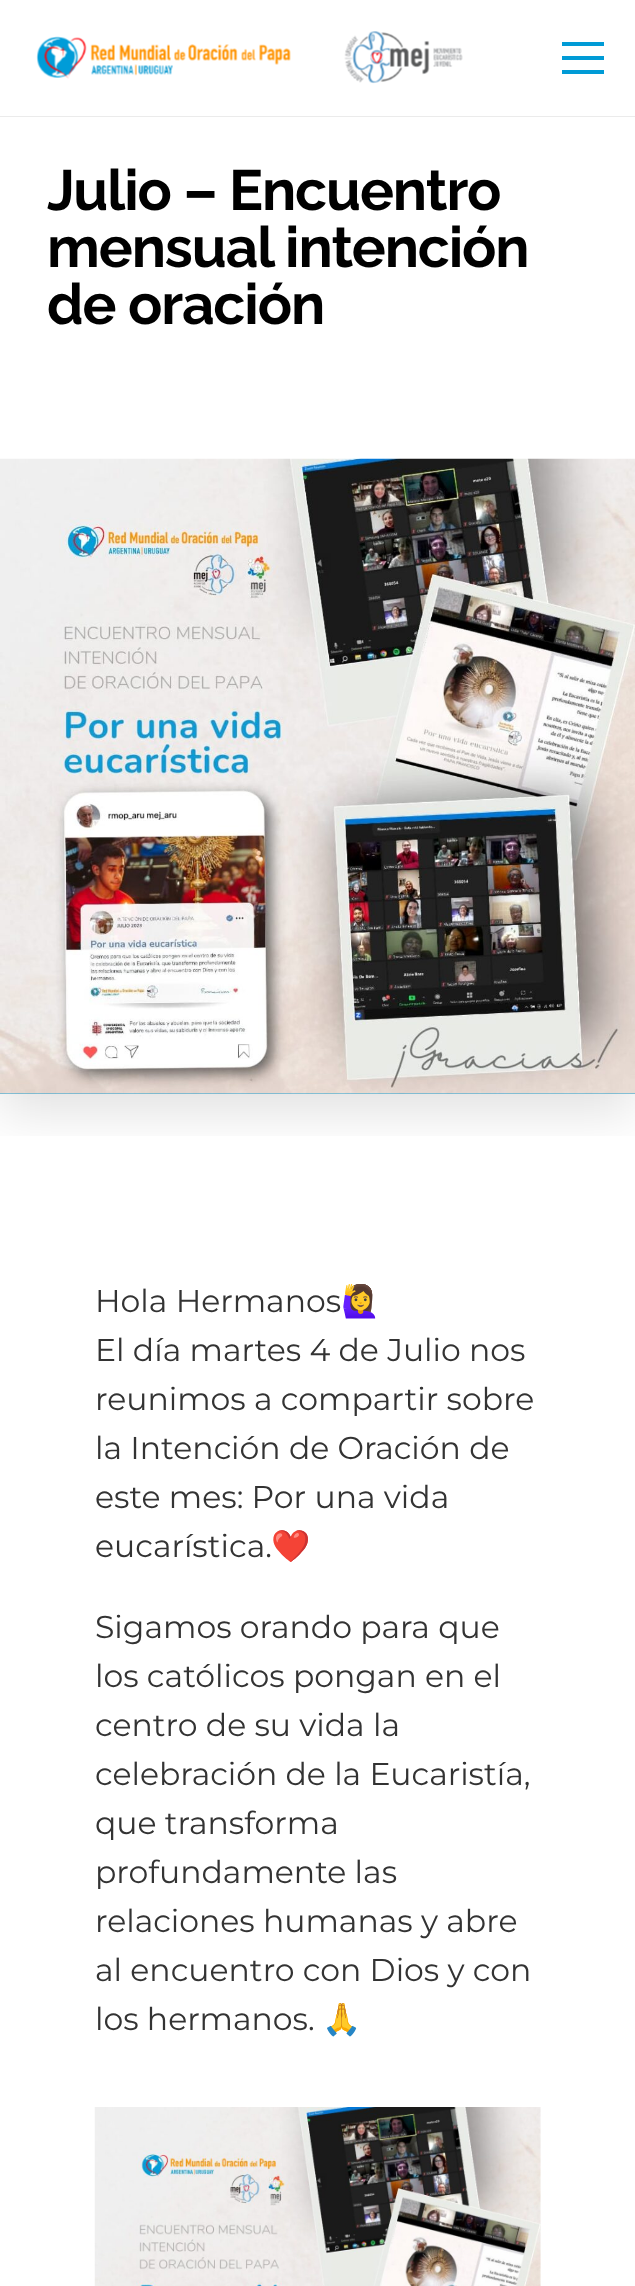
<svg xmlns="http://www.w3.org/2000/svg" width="635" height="2286">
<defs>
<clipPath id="clip1"><rect x="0" y="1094" width="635" height="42"/></clipPath>
</defs>
<rect width="100%" height="100%" fill="#fff"/>
<g clip-path="url(#clip1)">
<rect y="18" width="635" height="1093" fill="#0000001f" filter="blur(26px)"/>
</g>
<rect y="116" width="635" height="1" fill="#ebebeb"/>
<image x="36" y="36" width="255" height="43" href="media/1.png"/>
<image x="344" y="31" width="119" height="53" href="media/2.png"/>
<rect x="562" y="56" width="42" height="4" fill="#009bd6"/>
<rect x="562" y="42" width="42" height="4" fill="#009bd6"/>
<rect x="562" y="70" width="42" height="4" fill="#009bd6"/>
<text x="47" y="210" style="font-family:Raleway;font-size:56.75px;font-weight:100;letter-spacing:-1.1px;fill:#000">Julio – Encuentro</text>
<text x="47" y="267" style="font-family:Raleway;font-size:56.75px;font-weight:100;letter-spacing:-1.1px;fill:#000">mensual intención</text>
<text x="47" y="324" style="font-family:Raleway;font-size:56.75px;font-weight:100;letter-spacing:-1.1px;fill:#000">de oración</text>
<rect y="1093" width="635" height="1" fill="#009bd6"/>
<image x="0" y="458" width="635" height="636" href="media/3.png"/>
<text x="95" y="1312" style="font-family:Montserrat;font-size:31.5px;font-weight:100;fill:#333">Hola Hermanos</text>
<text x="341" y="1312" style="font-family:Noto Color Emoji;font-size:31.5px;fill:#333">🙋‍♀️</text>
<text x="95" y="1361" style="font-family:Montserrat;font-size:31.5px;font-weight:100;fill:#333">El día martes 4 de Julio nos</text>
<text x="95" y="1410" style="font-family:Montserrat;font-size:31.5px;font-weight:100;fill:#333">reunimos a compartir sobre</text>
<text x="95" y="1459" style="font-family:Montserrat;font-size:31.5px;font-weight:100;fill:#333">la Intención de Oración de</text>
<text x="95" y="1508" style="font-family:Montserrat;font-size:31.5px;font-weight:100;fill:#333">este mes: Por una vida</text>
<text x="95" y="1557" style="font-family:Montserrat;font-size:31.5px;font-weight:100;fill:#333">eucarística.</text>
<text x="271" y="1557" style="font-family:Noto Color Emoji;font-size:31.5px;fill:#333">❤️</text>
<text x="95" y="1638" style="font-family:Montserrat;font-size:31.5px;font-weight:100;fill:#333">Sigamos orando para que</text>
<text x="95" y="1687" style="font-family:Montserrat;font-size:31.5px;font-weight:100;fill:#333">los católicos pongan en el</text>
<text x="95" y="1736" style="font-family:Montserrat;font-size:31.5px;font-weight:100;fill:#333">centro de su vida la</text>
<text x="95" y="1785" style="font-family:Montserrat;font-size:31.5px;font-weight:100;fill:#333">celebración de la Eucaristía,</text>
<text x="95" y="1834" style="font-family:Montserrat;font-size:31.5px;font-weight:100;fill:#333">que transforma</text>
<text x="95" y="1883" style="font-family:Montserrat;font-size:31.5px;font-weight:100;fill:#333">profundamente las</text>
<text x="95" y="1932" style="font-family:Montserrat;font-size:31.5px;font-weight:100;fill:#333">relaciones humanas y abre</text>
<text x="95" y="1981" style="font-family:Montserrat;font-size:31.5px;font-weight:100;fill:#333">al encuentro con Dios y con</text>
<text x="95" y="2030" style="font-family:Montserrat;font-size:31.5px;font-weight:100;fill:#333">los hermanos.</text>
<text x="322" y="2030" style="font-family:Noto Color Emoji;font-size:31.5px;fill:#333">🙏</text>
<image x="94" y="2107" width="447" height="179" href="media/4.png"/>
</svg>
